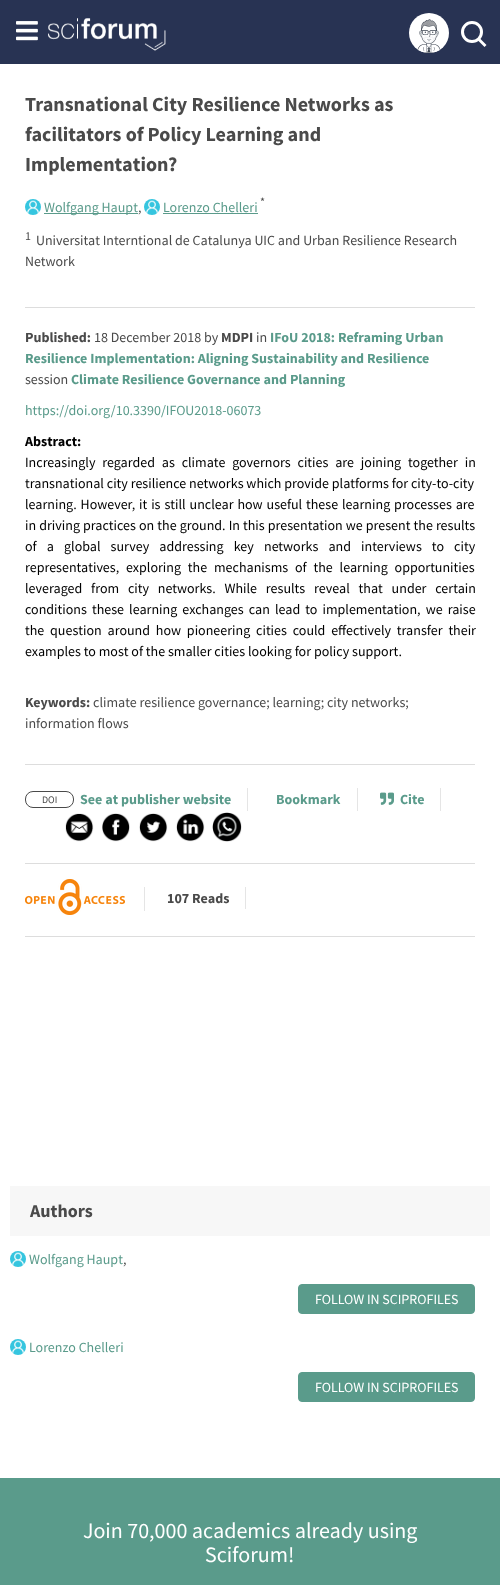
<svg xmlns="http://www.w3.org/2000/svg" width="500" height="1585">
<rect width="100%" height="100%" fill="#fff"/>
<rect width="500" height="64" fill="#283353"/>
<image x="16" y="21" width="22" height="20" href="media/1.png"/>
<image x="48" y="18" width="118" height="33" href="media/2.png"/>
<circle cx="429" cy="33" r="20" fill="#fff"/>
<image x="417" y="19" width="24" height="34" href="media/3.png"/>
<circle cx="472" cy="32" r="9.5" fill="none" stroke="#fff" stroke-width="3"/>
<path d="M479.5 38l7 7l-2 2l-7-7z" fill="#fff"/>
<text x="25" y="111" style="font-family:Source Sans Pro;font-size:20px;font-weight:bold;fill:#4a4a4a">Transnational City Resilience Networks as</text>
<text x="25" y="141" style="font-family:Source Sans Pro;font-size:20px;font-weight:bold;fill:#4a4a4a">facilitators of Policy Learning and</text>
<text x="25" y="171" style="font-family:Source Sans Pro;font-size:20px;font-weight:bold;fill:#4a4a4a">Implementation?</text>
<text x="260" y="206" style="font-family:Source Sans Pro;font-size:12px;fill:#4a4a4a">*</text>
<image x="25" y="199" width="16" height="16" href="media/4.png"/>
<rect x="44" y="213" width="94" height="1" fill="#5a9b8b"/>
<text x="44" y="212" style="font-family:Source Sans Pro;font-size:14px;fill:#5a9b8b">Wolfgang Haupt</text>
<text x="138" y="212" style="font-family:Source Sans Pro;font-size:14px;fill:#4a4a4a">,</text>
<image x="144" y="199" width="16" height="16" href="media/4.png"/>
<text x="163" y="212" style="font-family:Source Sans Pro;font-size:14px;fill:#5a9b8b">Lorenzo Chelleri</text>
<rect x="163" y="213" width="95" height="1" fill="#5a9b8b"/>
<text x="25" y="240" style="font-family:Source Sans Pro;font-size:12px;fill:#4a4a4a">1</text>
<text x="36" y="245" style="font-family:Source Sans Pro;font-size:14px;fill:#4a4a4a">Universitat Interntional de Catalunya UIC and Urban Resilience Research</text>
<text x="25" y="266" style="font-family:Source Sans Pro;font-size:14px;fill:#4a4a4a">Network</text>
<rect x="25" y="307" width="450" height="1" fill="#ddd"/>
<text x="25" y="342" style="font-family:Source Sans Pro;font-size:14px;font-weight:bold;fill:#4a4a4a">Published:</text>
<text x="94" y="342" style="font-family:Source Sans Pro;font-size:14px;fill:#4a4a4a">18 December 2018 by</text>
<text x="221" y="342" style="font-family:Source Sans Pro;font-size:14px;font-weight:bold;fill:#4a4a4a">MDPI</text>
<text x="256" y="342" style="font-family:Source Sans Pro;font-size:14px;fill:#4a4a4a">in</text>
<text x="270" y="342" style="font-family:Source Sans Pro;font-size:14px;font-weight:bold;fill:#5a9b8b">IFoU 2018: Reframing Urban</text>
<text x="25" y="363" style="font-family:Source Sans Pro;font-size:14px;font-weight:bold;fill:#5a9b8b">Resilience Implementation: Aligning Sustainability and Resilience</text>
<text x="25" y="384" style="font-family:Source Sans Pro;font-size:14px;fill:#4a4a4a">session</text>
<text x="71" y="384" style="font-family:Source Sans Pro;font-size:14px;font-weight:bold;fill:#5a9b8b">Climate Resilience Governance and Planning</text>
<text x="25" y="415" style="font-family:Source Sans Pro;font-size:14px;fill:#5a9b8b">https://doi.org/10.3390/IFOU2018-06073</text>
<text x="25" y="446" style="font-family:Source Sans Pro;font-size:14px;font-weight:bold;fill:#000">Abstract:</text>
<text x="25" y="467" word-spacing="4" style="font-family:Source Sans Pro;font-size:14px;fill:#000">Increasingly regarded as climate governors cities are joining together in</text>
<text x="25" y="488" style="font-family:Source Sans Pro;font-size:14px;fill:#000">transnational city resilience networks which provide platforms for city-to-city</text>
<text x="25" y="509" word-spacing="1.1" style="font-family:Source Sans Pro;font-size:14px;fill:#000">learning. However, it is still unclear how useful these learning processes are</text>
<text x="25" y="530" word-spacing="0.25" style="font-family:Source Sans Pro;font-size:14px;fill:#000">in driving practices on the ground. In this presentation we present the results</text>
<text x="25" y="551" word-spacing="7.25" style="font-family:Source Sans Pro;font-size:14px;fill:#000">of a global survey addressing key networks and interviews to city</text>
<text x="25" y="572" word-spacing="4" style="font-family:Source Sans Pro;font-size:14px;fill:#000">representatives, exploring the mechanisms of the learning opportunities</text>
<text x="25" y="593" word-spacing="6" style="font-family:Source Sans Pro;font-size:14px;fill:#000">leveraged from city networks. While results reveal that under certain</text>
<text x="25" y="614" word-spacing="2.25" style="font-family:Source Sans Pro;font-size:14px;fill:#000">conditions these learning exchanges can lead to implementation, we raise</text>
<text x="25" y="635" word-spacing="3" style="font-family:Source Sans Pro;font-size:14px;fill:#000">the question around how pioneering cities could effectively transfer their</text>
<text x="25" y="656" style="font-family:Source Sans Pro;font-size:14px;fill:#000">examples to most of the smaller cities looking for policy support.</text>
<text x="25" y="707" style="font-family:Source Sans Pro;font-size:14px;font-weight:bold;fill:#4a4a4a">Keywords:</text>
<text x="93" y="707" style="font-family:Source Sans Pro;font-size:14px;fill:#4a4a4a">climate resilience governance; learning; city networks;</text>
<text x="25" y="728" style="font-family:Source Sans Pro;font-size:14px;fill:#4a4a4a">information flows</text>
<rect x="25" y="764" width="450" height="1" fill="#ddd"/>
<rect x="247" y="788" width="1" height="23" fill="#e5e5e5"/>
<rect x="25.5" y="791.5" width="48" height="16" rx="7.5" fill="none" stroke="#4a4a4a"/>
<text x="42" y="803" style="font-family:Source Sans Pro;font-size:10px;fill:#4a4a4a">DOI</text>
<text x="80" y="804" style="font-family:Source Sans Pro;font-size:14px;font-weight:bold;fill:#5a9b8b">See at publisher website</text>
<rect x="357" y="788" width="1" height="23" fill="#e5e5e5"/>
<text x="276" y="804" style="font-family:Source Sans Pro;font-size:14px;font-weight:bold;fill:#5a9b8b">Bookmark</text>
<rect x="440" y="788" width="1" height="23" fill="#e5e5e5"/>
<image x="380" y="792" width="14" height="13" href="media/5.png"/>
<text x="400" y="804" style="font-family:Source Sans Pro;font-size:14px;font-weight:bold;fill:#5a9b8b">Cite</text>
<image x="65" y="813" width="29" height="29" href="media/6.png"/>
<image x="102" y="813" width="28" height="29" href="media/7.png"/>
<image x="139" y="813" width="29" height="29" href="media/8.png"/>
<image x="176" y="813" width="29" height="29" href="media/9.png"/>
<image x="212" y="812" width="30" height="30" href="media/10.png"/>
<rect x="25" y="863" width="450" height="1" fill="#ddd"/>
<rect x="144" y="887" width="1" height="24" fill="#e5e5e5"/>
<image x="25" y="879" width="100" height="36" href="media/11.png"/>
<rect x="245" y="887" width="1" height="22" fill="#e5e5e5"/>
<text x="167" y="903" style="font-family:Source Sans Pro;font-size:14px;font-weight:bold;fill:#4a4a4a">107 Reads</text>
<rect x="25" y="936" width="450" height="1" fill="#ddd"/>
<rect x="10" y="1186" width="480" height="50" fill="#f7f7f7"/>
<text x="30" y="1217" style="font-family:Source Sans Pro;font-size:18px;font-weight:bold;fill:#4a4a4a">Authors</text>
<image x="10" y="1251" width="16" height="16" href="media/4.png"/>
<text x="29" y="1264" style="font-family:Source Sans Pro;font-size:14px;fill:#5a9b8b">Wolfgang Haupt</text>
<text x="123" y="1264" style="font-family:Source Sans Pro;font-size:14px;fill:#4a4a4a">,</text>
<rect x="298.5" y="1284.5" width="176" height="29" rx="3.5" fill="#5a9b8b" stroke="#5a9b8b"/>
<text x="315" y="1304" style="font-family:Source Sans Pro;font-size:14px;fill:#fff">FOLLOW IN SCIPROFILES</text>
<image x="10" y="1339" width="16" height="16" href="media/4.png"/>
<text x="29" y="1352" style="font-family:Source Sans Pro;font-size:14px;fill:#5a9b8b">Lorenzo Chelleri</text>
<rect x="298.5" y="1372.5" width="176" height="29" rx="3.5" fill="#5a9b8b" stroke="#5a9b8b"/>
<text x="315" y="1392" style="font-family:Source Sans Pro;font-size:14px;fill:#fff">FOLLOW IN SCIPROFILES</text>
<rect y="1478" width="500" height="107" fill="#5a9b8b"/>
<text x="83" y="1538" style="font-family:Source Sans Pro;font-size:22px;fill:#fff">Join 70,000 academics already using</text>
<text x="205" y="1562" style="font-family:Source Sans Pro;font-size:22px;fill:#fff">Sciforum!</text>
</svg>
